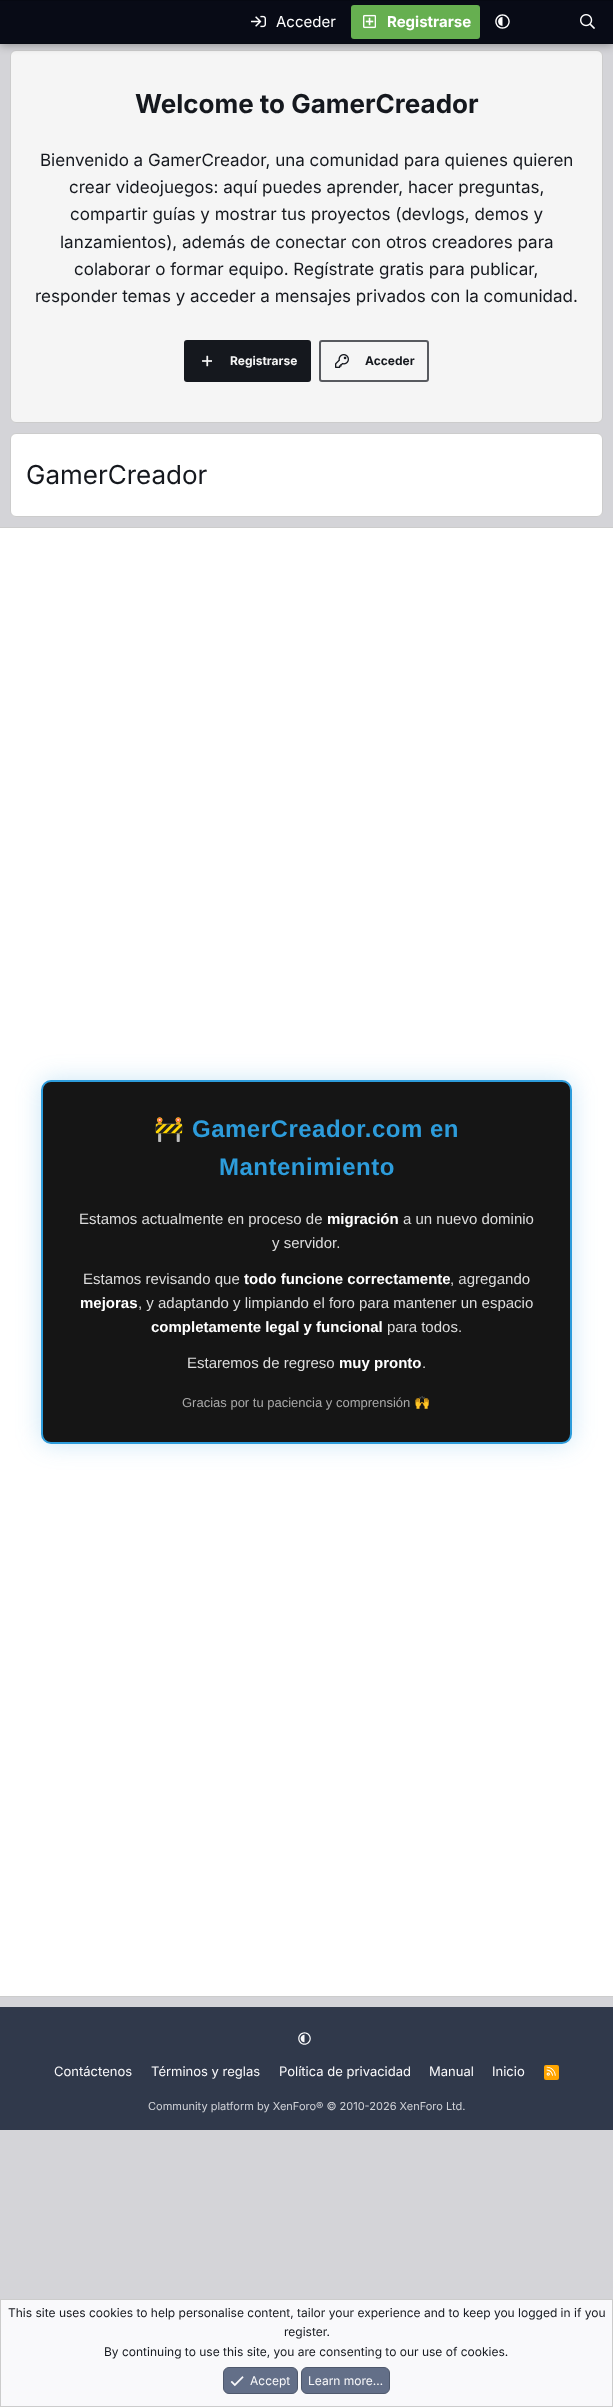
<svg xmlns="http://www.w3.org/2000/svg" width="613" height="2407">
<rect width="100%" height="100%" fill="#d4d4d8"/>
<rect x="10.5" y="50.5" width="592" height="372" rx="5.5" fill="#f5f5f5" stroke="#ccc"/>
<rect y="-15" width="613" height="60" fill="#00000059" filter="blur(5px)"/>
<rect y="1" width="613" height="42" fill="#080b16"/>
<rect width="613" height="1" fill="#060912"/>
<rect y="43" width="613" height="1" fill="#060912"/>
<image x="251" y="15" width="15" height="13" href="media/1.png"/>
<text x="276" y="27" style="font-family:Inter;font-size:15px;fill:#fff">Acceder</text>
<rect x="351" y="5" width="129" height="34" rx="3" fill="#66af50"/>
<image x="363" y="14" width="13" height="15" href="media/2.png"/>
<text x="387" y="27" style="font-family:Inter;font-size:15px;font-weight:bold;fill:#fff">Registrarse</text>
<image x="495" y="14" width="15" height="15" href="media/3.png"/>
<image x="580" y="14" width="15" height="15" href="media/4.png"/>
<text x="135" y="113" style="font-family:Inter;font-size:26px;font-weight:bold;fill:#15181e">Welcome to GamerCreador</text>
<text x="40" y="166" style="font-family:Inter;font-size:17px;fill:#15181e">Bienvenido a GamerCreador, una comunidad para quienes quieren</text>
<text x="69" y="193" style="font-family:Inter;font-size:17px;fill:#15181e">crear videojuegos: aquí puedes aprender, hacer preguntas,</text>
<text x="70" y="220" style="font-family:Inter;font-size:17px;fill:#15181e">compartir guías y mostrar tus proyectos (devlogs, demos y</text>
<text x="60" y="248" style="font-family:Inter;font-size:17px;fill:#15181e">lanzamientos), además de conectar con otros creadores para</text>
<text x="74" y="275" style="font-family:Inter;font-size:17px;fill:#15181e">colaborar o formar equipo. Regístrate gratis para publicar,</text>
<text x="35" y="302" style="font-family:Inter;font-size:17px;fill:#15181e">responder temas y acceder a mensajes privados con la comunidad.</text>
<rect x="184" y="340" width="127" height="42" rx="3" fill="#15181e"/>
<image x="202" y="355" width="10" height="12" href="media/5.png"/>
<text x="230" y="365" style="font-family:Inter;font-size:12px;font-weight:bold;fill:#f5f5f5">Registrarse</text>
<rect x="320" y="341" width="108" height="40" rx="2" fill="none" stroke="#585a5f" stroke-width="2"/>
<image x="335" y="354" width="14" height="14" href="media/6.png"/>
<text x="365" y="365" style="font-family:Inter;font-size:12px;font-weight:bold;fill:#15181e">Acceder</text>
<rect x="10.5" y="433.5" width="592" height="83" rx="5.5" fill="#fff" stroke="#ccc"/>
<text x="26" y="484" style="font-family:Inter;font-size:26px;fill:#15181e">GamerCreador</text>
<rect y="528" width="613" height="1468" fill="#fff"/>
<rect y="527" width="613" height="1" fill="#ccc"/>
<rect y="1996" width="613" height="1" fill="#ccc"/>
<rect x="41" y="1080" width="531" height="364" rx="10" fill="#2d9cdb40" filter="blur(12.5px)"/>
<rect x="42" y="1081" width="529" height="362" rx="9" fill="#151515" stroke="#2d9cdb" stroke-width="2"/>
<text x="154" y="1137" style="font-family:Noto Color Emoji;font-size:24px;font-weight:bold;letter-spacing:0.5px;fill:#2d9cdb">🚧</text>
<text x="192" y="1137" style="font-family:Liberation Sans;font-size:24px;font-weight:bold;letter-spacing:0.5px;fill:#2d9cdb">GamerCreador.com en</text>
<text x="219" y="1175" style="font-family:Liberation Sans;font-size:24px;font-weight:bold;letter-spacing:0.5px;fill:#2d9cdb">Mantenimiento</text>
<text x="79" y="1224" style="font-family:Liberation Sans;font-size:15px;fill:#ddd">Estamos actualmente en proceso de</text>
<text x="327" y="1224" style="font-family:Liberation Sans;font-size:15px;font-weight:bold;fill:#fff">migración</text>
<text x="403" y="1224" style="font-family:Liberation Sans;font-size:15px;fill:#ddd">a un nuevo dominio</text>
<text x="272" y="1248" style="font-family:Liberation Sans;font-size:15px;fill:#ddd">y servidor.</text>
<text x="83" y="1284" style="font-family:Liberation Sans;font-size:15px;fill:#ddd">Estamos revisando que</text>
<text x="244" y="1284" style="font-family:Liberation Sans;font-size:15px;font-weight:bold;fill:#fff">todo funcione correctamente</text>
<text x="450" y="1284" style="font-family:Liberation Sans;font-size:15px;fill:#ddd">, agregando</text>
<text x="80" y="1308" style="font-family:Liberation Sans;font-size:15px;font-weight:bold;fill:#fff">mejoras</text>
<text x="138" y="1308" style="font-family:Liberation Sans;font-size:15px;fill:#ddd">, y adaptando y limpiando el foro para mantener un espacio</text>
<text x="151" y="1332" style="font-family:Liberation Sans;font-size:15px;font-weight:bold;fill:#fff">completamente legal y funcional</text>
<text x="387" y="1332" style="font-family:Liberation Sans;font-size:15px;fill:#ddd">para todos.</text>
<text x="187" y="1368" style="font-family:Liberation Sans;font-size:15px;fill:#ddd">Estaremos de regreso</text>
<text x="339" y="1368" style="font-family:Liberation Sans;font-size:15px;font-weight:bold;fill:#fff">muy pronto</text>
<text x="422" y="1368" style="font-family:Liberation Sans;font-size:15px;fill:#ddd">.</text>
<text x="182" y="1407" style="font-family:Liberation Sans;font-size:13px;fill:#aaa">Gracias por tu paciencia y comprensión</text>
<text x="414" y="1407" style="font-family:Noto Color Emoji;font-size:13px;fill:#aaa">🙌</text>
<rect y="2007" width="613" height="123" fill="#30394b"/>
<image x="298" y="2032" width="13" height="13" href="media/7.png"/>
<text x="54" y="2076" style="font-family:Inter;font-size:13px;fill:#f9f9fb">Contáctenos</text>
<text x="151" y="2076" style="font-family:Inter;font-size:13px;fill:#f9f9fb">Términos y reglas</text>
<text x="279" y="2076" style="font-family:Inter;font-size:13px;fill:#f9f9fb">Política de privacidad</text>
<text x="429" y="2076" style="font-family:Inter;font-size:13px;fill:#f9f9fb">Manual</text>
<text x="492" y="2076" style="font-family:Inter;font-size:13px;fill:#f9f9fb">Inicio</text>
<rect x="544" y="2065" width="15" height="15" rx="2" fill="#ffa500"/>
<image x="546" y="2066" width="10" height="10" href="media/8.png"/>
<text x="148" y="2110" style="font-family:Inter;font-size:11px;fill:#d1d3d8">Community platform by XenForo® © 2010-2026 XenForo Ltd.</text>
<rect x="0.5" y="2299.5" width="612" height="107" fill="#f9f9fb" stroke="#ccc"/>
<text x="8" y="2317" style="font-family:Inter;font-size:12px;fill:#15181e">This site uses cookies to help personalise content, tailor your experience and to keep you logged in if you</text>
<text x="284" y="2336" style="font-family:Inter;font-size:12px;fill:#15181e">register.</text>
<text x="104" y="2356" style="font-family:Inter;font-size:12px;fill:#15181e">By continuing to use this site, you are consenting to our use of cookies.</text>
<rect x="223.5" y="2367.5" width="74" height="26" rx="5.5" fill="#636f88" stroke="#4f596d"/>
<image x="230" y="2376" width="14" height="11" href="media/9.png"/>
<text x="250" y="2385" style="font-family:Inter;font-size:12px;fill:#f9f9fb">Accept</text>
<rect x="301.5" y="2367.5" width="88" height="26" rx="5.5" fill="#636f88" stroke="#4f596d"/>
<text x="308" y="2385" style="font-family:Inter;font-size:12px;fill:#f9f9fb">Learn more…</text>
</svg>
